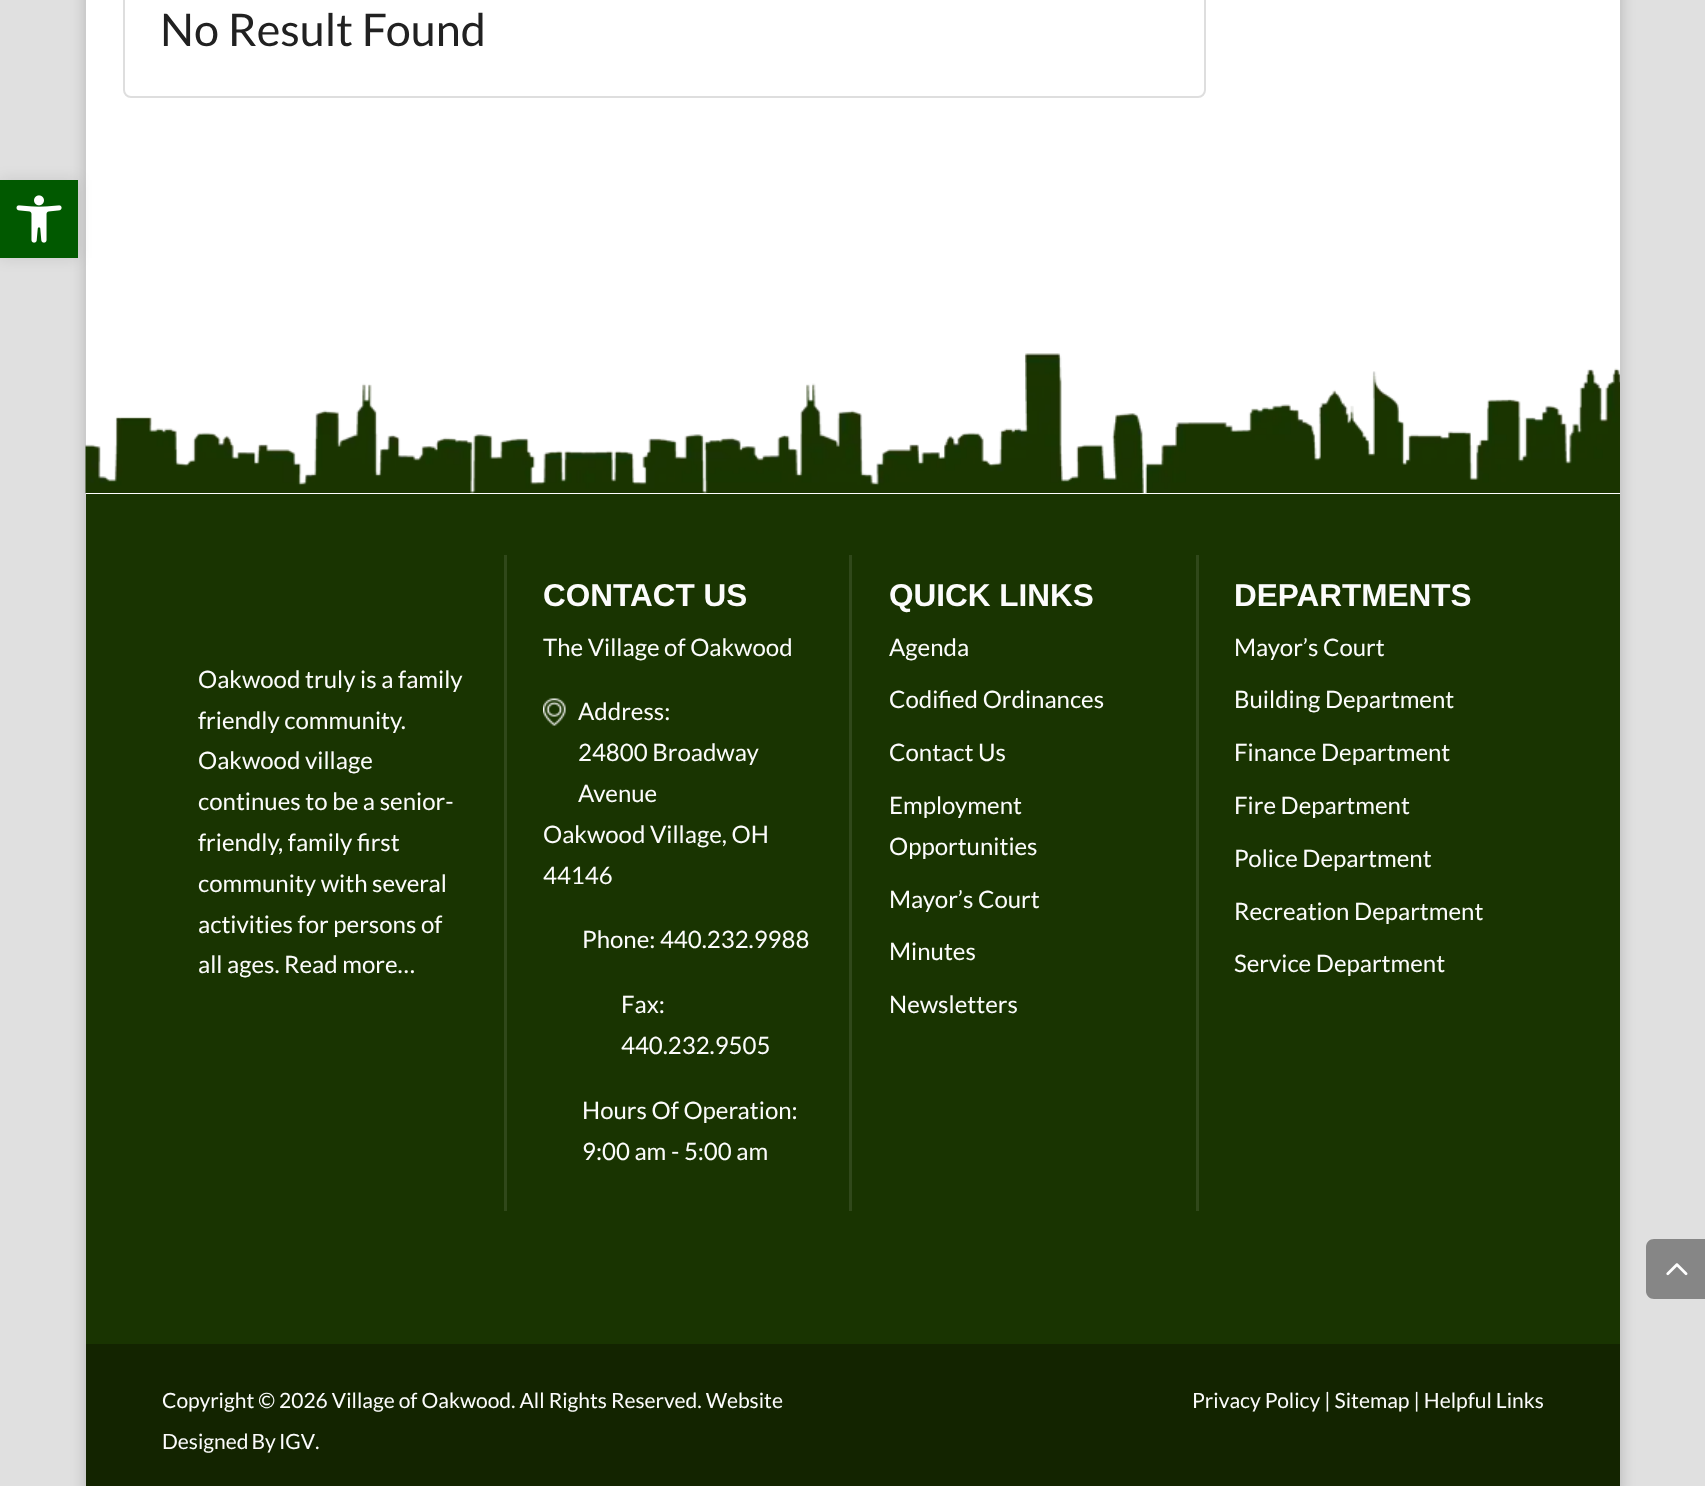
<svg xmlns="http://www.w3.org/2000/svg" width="1705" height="1486">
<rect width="100%" height="100%" fill="#e0e0e0"/>
<rect x="86" y="-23" width="1534" height="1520" fill="#00000033" filter="blur(7.5px)"/>
<rect x="86" width="1534" height="494" fill="#fff"/>
<rect y="180" width="78" height="78" fill="#0000001a" filter="blur(7.5px)"/>
<rect y="180" width="78" height="78" fill="#015900"/>
<image x="16" y="195" width="46" height="48" href="media/1.png"/>
<rect x="124" y="-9" width="1081" height="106" rx="7" fill="none" stroke="#dedede" stroke-width="2"/>
<text x="160" y="46" style="font-family:Lato;font-size:45px;fill:#212121">No Result Found</text>
<image x="85" y="353" width="1535" height="140" href="media/2.png"/>
<rect x="86" y="494" width="1534" height="850" fill="#193401"/>
<rect x="504" y="555" width="3" height="656" fill="#30481a"/>
<text x="198" y="688" style="font-family:Lato;font-size:24px;fill:#fcfcfc">Oakwood truly is a family</text>
<text x="198" y="729" style="font-family:Lato;font-size:24px;fill:#fcfcfc">friendly community.</text>
<text x="198" y="769" style="font-family:Lato;font-size:24px;fill:#fcfcfc">Oakwood village</text>
<text x="198" y="810" style="font-family:Lato;font-size:24px;fill:#fcfcfc">continues to be a senior-</text>
<text x="198" y="851" style="font-family:Lato;font-size:24px;fill:#fcfcfc">friendly, family first</text>
<text x="198" y="892" style="font-family:Lato;font-size:24px;fill:#fcfcfc">community with several</text>
<text x="198" y="933" style="font-family:Lato;font-size:24px;fill:#fcfcfc">activities for persons of</text>
<text x="198" y="973" style="font-family:Lato;font-size:24px;fill:#fcfcfc">all ages.</text>
<text x="284" y="973" style="font-family:Lato;font-size:24px;fill:#fcfcfc">Read more…</text>
<rect x="849" y="555" width="3" height="656" fill="#30481a"/>
<text x="543" y="606" style="font-family:Liberation Sans;font-size:31.5px;font-weight:bold;fill:#fcfcfc">CONTACT US</text>
<text x="543" y="656" style="font-family:Lato;font-size:24px;fill:#fcfcfc">The Village of Oakwood</text>
<image x="543" y="698" width="23" height="28" href="media/3.png"/>
<text x="578" y="720" style="font-family:Lato;font-size:24px;fill:#fcfcfc">Address:</text>
<text x="578" y="761" style="font-family:Lato;font-size:24px;fill:#fcfcfc">24800 Broadway</text>
<text x="578" y="802" style="font-family:Lato;font-size:24px;fill:#fcfcfc">Avenue</text>
<text x="543" y="843" style="font-family:Lato;font-size:24px;fill:#fcfcfc">Oakwood Village, OH</text>
<text x="543" y="884" style="font-family:Lato;font-size:24px;fill:#fcfcfc">44146</text>
<text x="582" y="948" style="font-family:Lato;font-size:24px;fill:#fcfcfc">Phone: 440.232.9988</text>
<text x="621" y="1013" style="font-family:Lato;font-size:24px;fill:#fcfcfc">Fax:</text>
<text x="621" y="1054" style="font-family:Lato;font-size:24px;fill:#fcfcfc">440.232.9505</text>
<text x="582" y="1119" style="font-family:Lato;font-size:24px;fill:#fcfcfc">Hours Of Operation:</text>
<text x="582" y="1160" style="font-family:Lato;font-size:24px;fill:#fcfcfc">9:00 am - 5:00 am</text>
<rect x="1196" y="555" width="3" height="656" fill="#30481a"/>
<text x="889" y="606" style="font-family:Liberation Sans;font-size:31.5px;font-weight:bold;fill:#fcfcfc">QUICK LINKS</text>
<text x="889" y="656" style="font-family:Lato;font-size:24px;fill:#fcfcfc">Agenda</text>
<text x="889" y="708" style="font-family:Lato;font-size:24px;fill:#fcfcfc">Codified Ordinances</text>
<text x="889" y="761" style="font-family:Lato;font-size:24px;fill:#fcfcfc">Contact Us</text>
<text x="889" y="814" style="font-family:Lato;font-size:24px;fill:#fcfcfc">Employment</text>
<text x="889" y="855" style="font-family:Lato;font-size:24px;fill:#fcfcfc">Opportunities</text>
<text x="889" y="908" style="font-family:Lato;font-size:24px;fill:#fcfcfc">Mayor’s Court</text>
<text x="889" y="960" style="font-family:Lato;font-size:24px;fill:#fcfcfc">Minutes</text>
<text x="889" y="1013" style="font-family:Lato;font-size:24px;fill:#fcfcfc">Newsletters</text>
<text x="1234" y="606" style="font-family:Liberation Sans;font-size:31.5px;font-weight:bold;fill:#fcfcfc">DEPARTMENTS</text>
<text x="1234" y="656" style="font-family:Lato;font-size:24px;fill:#fcfcfc">Mayor’s Court</text>
<text x="1234" y="708" style="font-family:Lato;font-size:24px;fill:#fcfcfc">Building Department</text>
<text x="1234" y="761" style="font-family:Lato;font-size:24px;fill:#fcfcfc">Finance Department</text>
<text x="1234" y="814" style="font-family:Lato;font-size:24px;fill:#fcfcfc">Fire Department</text>
<text x="1234" y="867" style="font-family:Lato;font-size:24px;fill:#fcfcfc">Police Department</text>
<text x="1234" y="920" style="font-family:Lato;font-size:24px;fill:#fcfcfc">Recreation Department</text>
<text x="1234" y="972" style="font-family:Lato;font-size:24px;fill:#fcfcfc">Service Department</text>
<rect x="86" y="1344" width="1534" height="142" fill="#132400"/>
<text x="162" y="1408" style="font-family:Lato;font-size:21px;fill:#fcfcfc">Copyright © 2026 Village of Oakwood. All Rights Reserved. Website</text>
<text x="162" y="1449" word-spacing="-1" style="font-family:Lato;font-size:21px;fill:#fcfcfc">Designed By IGV</text>
<text x="315" y="1449" style="font-family:Lato;font-size:21px;fill:#fcfcfc">.</text>
<text x="1192" y="1408" style="font-family:Lato;font-size:21px;fill:#fcfcfc">Privacy Policy | Sitemap | Helpful Links</text>
<path d="M1654 1239h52v60h-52c-4.5 0-8-3.5-8-8v-44c0-4.5 3.5-8 8-8z" fill="#868686"/>
<image x="1666" y="1263" width="22" height="13" href="media/4.png"/>
</svg>
